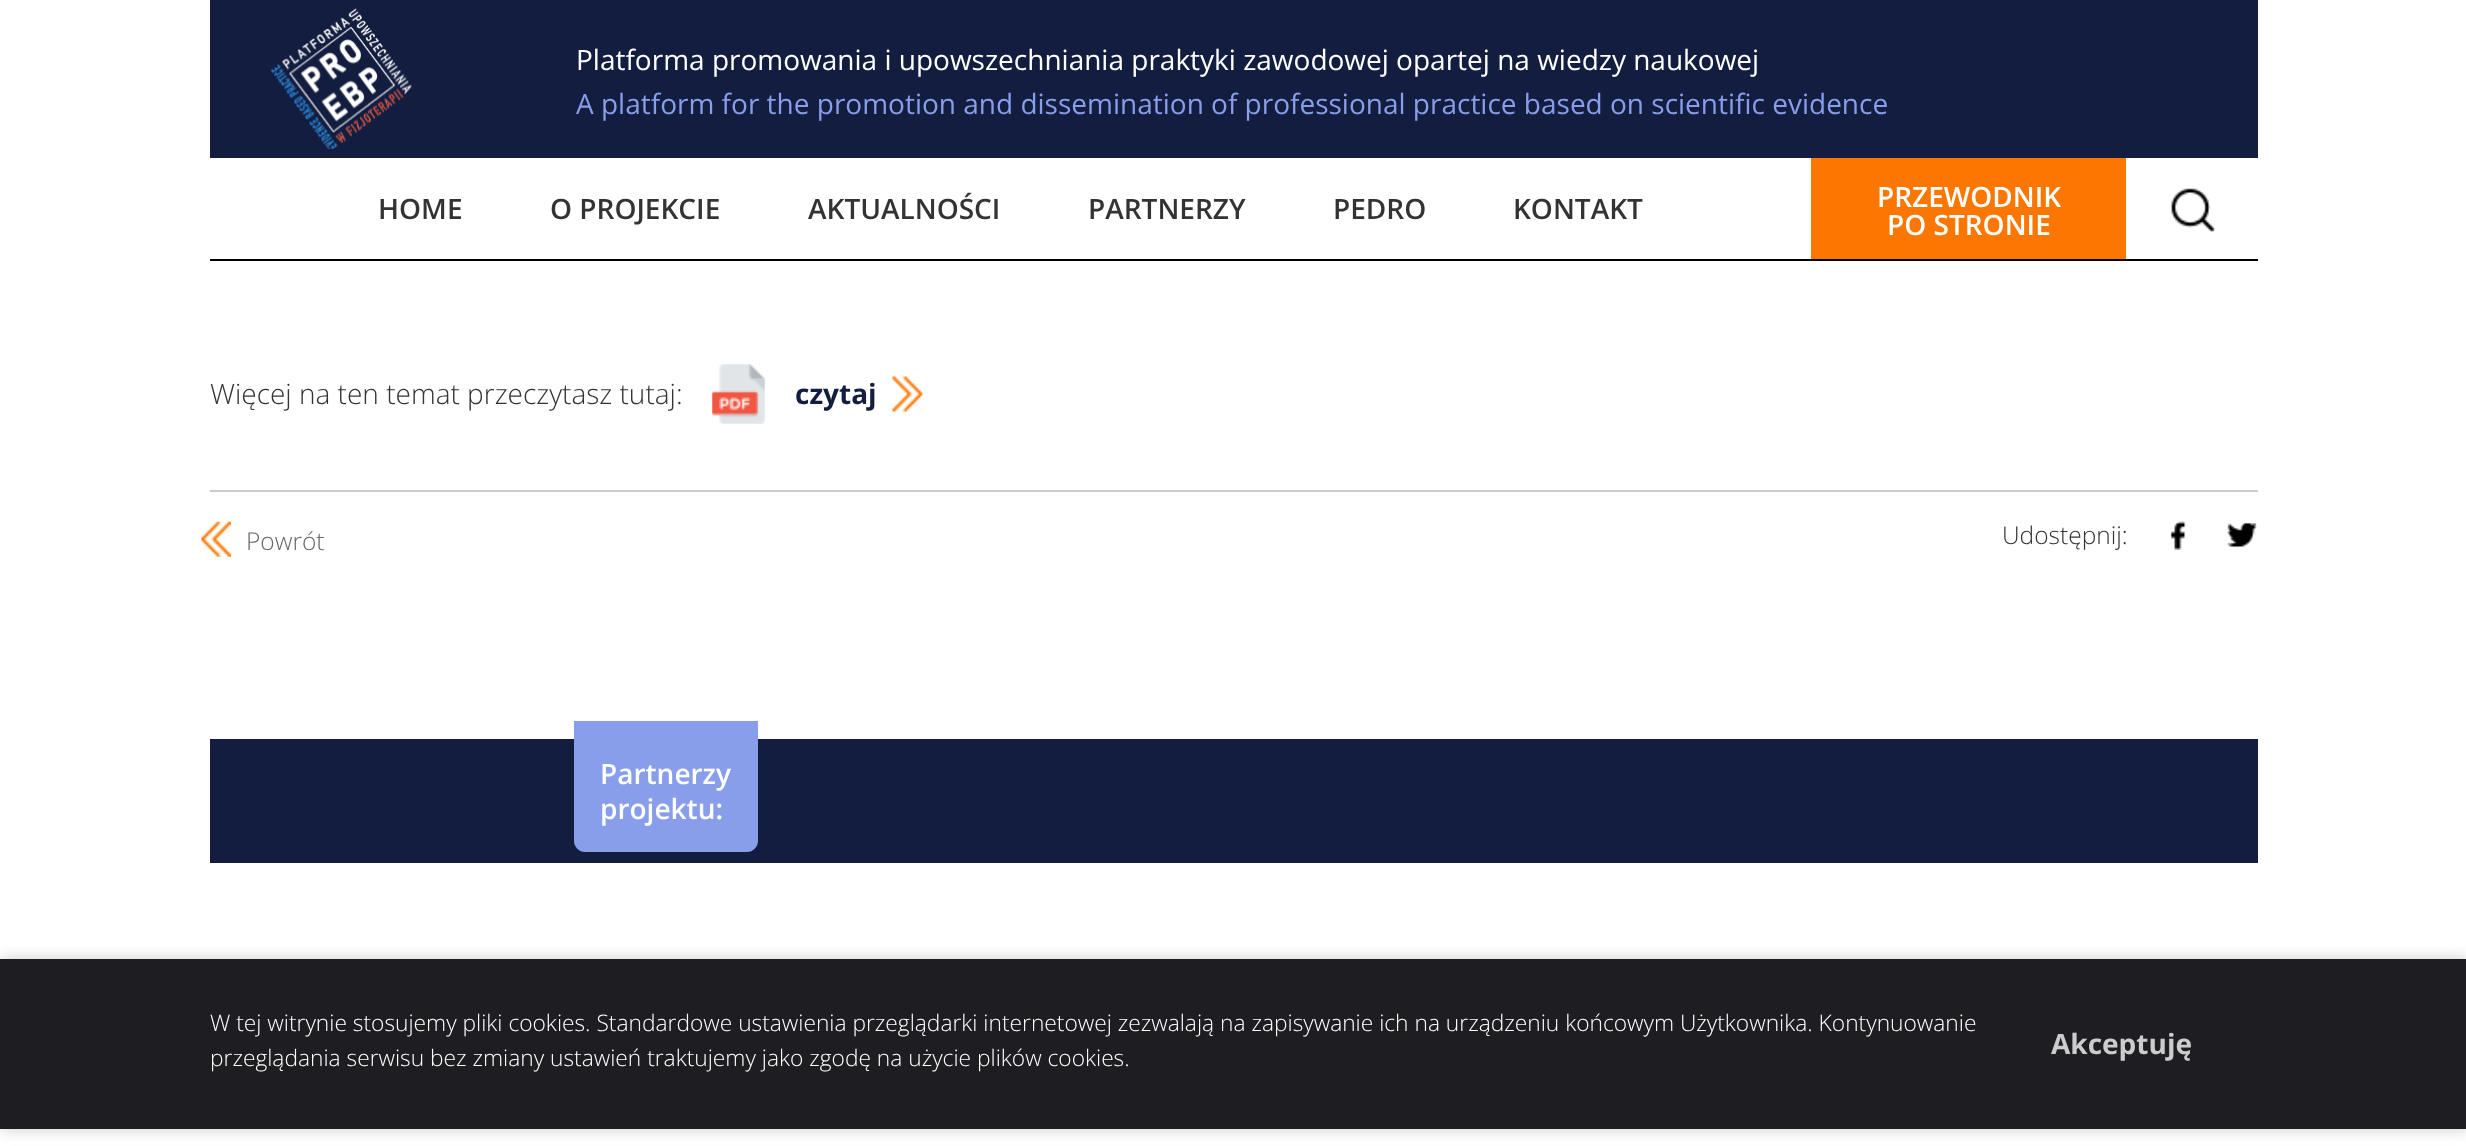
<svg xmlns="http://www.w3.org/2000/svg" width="2466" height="1146">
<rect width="100%" height="100%" fill="#fff"/>
<rect x="210" width="2048" height="158" fill="#131d3f"/>
<image x="271" y="8" width="141" height="141" href="media/1.png"/>
<text x="576" y="70" style="font-family:Open Sans;font-size:28px;fill:#fff">Platforma promowania i upowszechniania praktyki zawodowej opartej na wiedzy naukowej</text>
<text x="576" y="114" style="font-family:Open Sans;font-size:28px;fill:#889eeb">A platform for the promotion and dissemination of professional practice based on scientific evidence</text>
<rect x="210" y="259" width="2048" height="2" fill="#000"/>
<text x="378" y="219" style="font-family:Open Sans;font-size:28px;font-weight:600;fill:#333">HOME</text>
<text x="550" y="219" style="font-family:Open Sans;font-size:28px;font-weight:600;fill:#333">O PROJEKCIE</text>
<text x="808" y="219" style="font-family:Open Sans;font-size:28px;font-weight:600;fill:#333">AKTUALNOŚCI</text>
<text x="1088" y="219" style="font-family:Open Sans;font-size:28px;font-weight:600;fill:#333">PARTNERZY</text>
<text x="1333" y="219" style="font-family:Open Sans;font-size:28px;font-weight:600;fill:#333">PEDRO</text>
<text x="1513" y="219" style="font-family:Open Sans;font-size:28px;font-weight:600;fill:#333">KONTAKT</text>
<rect x="1811" y="158" width="315" height="101" fill="#fc7701"/>
<text x="1877" y="207" style="font-family:Open Sans;font-size:28px;font-weight:600;fill:#fff">PRZEWODNIK</text>
<text x="1887" y="235" style="font-family:Open Sans;font-size:28px;font-weight:600;fill:#fff">PO STRONIE</text>
<image x="2171" y="188" width="44" height="44" href="media/2.png"/>
<text x="210" y="404" style="font-family:Open Sans;font-size:28px;font-weight:300;fill:#333">Więcej na ten temat przeczytasz tutaj:</text>
<image x="712" y="364" width="53" height="60" href="media/3.png"/>
<text x="795" y="404" style="font-family:Open Sans;font-size:28px;font-weight:bold;fill:#131d3f">czytaj</text>
<image x="892" y="376" width="31" height="36" href="media/4.png"/>
<rect x="210" y="490" width="2048" height="2" fill="#ccc"/>
<image x="201" y="521" width="30" height="36" href="media/5.png"/>
<text x="246" y="550" style="font-family:Open Sans;font-size:24.5px;font-weight:300;fill:#666">Powrót</text>
<text x="2002" y="544" style="font-family:Open Sans;font-size:24.5px;font-weight:300;fill:#333">Udostępnij:</text>
<image x="2170" y="521" width="16" height="29" href="media/6.png"/>
<image x="2227" y="522" width="30" height="26" href="media/7.png"/>
<rect x="210" y="739" width="2048" height="124" fill="#131d3f"/>
<path d="M574 721h184v120c0 6-5 11-11 11h-162c-6 0-11-5-11-11z" fill="#889eeb"/>
<text x="600" y="784" style="font-family:Open Sans;font-size:28px;font-weight:600;fill:#fff">Partnerzy</text>
<text x="600" y="819" style="font-family:Open Sans;font-size:28px;font-weight:600;fill:#fff">projektu:</text>
<rect y="959" width="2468" height="170" fill="#00000033" filter="blur(8px)"/>
<rect y="959" width="2466" height="170" fill="#1e1d21"/>
<text x="210" y="1031" style="font-family:Open Sans;font-size:22.75px;font-weight:300;fill:#fff">W tej witrynie stosujemy pliki cookies. Standardowe ustawienia przeglądarki internetowej zezwalają na zapisywanie ich na urządzeniu końcowym Użytkownika. Kontynuowanie</text>
<text x="210" y="1066" style="font-family:Open Sans;font-size:22.75px;font-weight:300;fill:#fff">przeglądania serwisu bez zmiany ustawień traktujemy jako zgodę na użycie plików cookies.</text>
<text x="2051" y="1054" style="font-family:Open Sans;font-size:28px;font-weight:bold;fill:#ccc">Akceptuję</text>
</svg>
